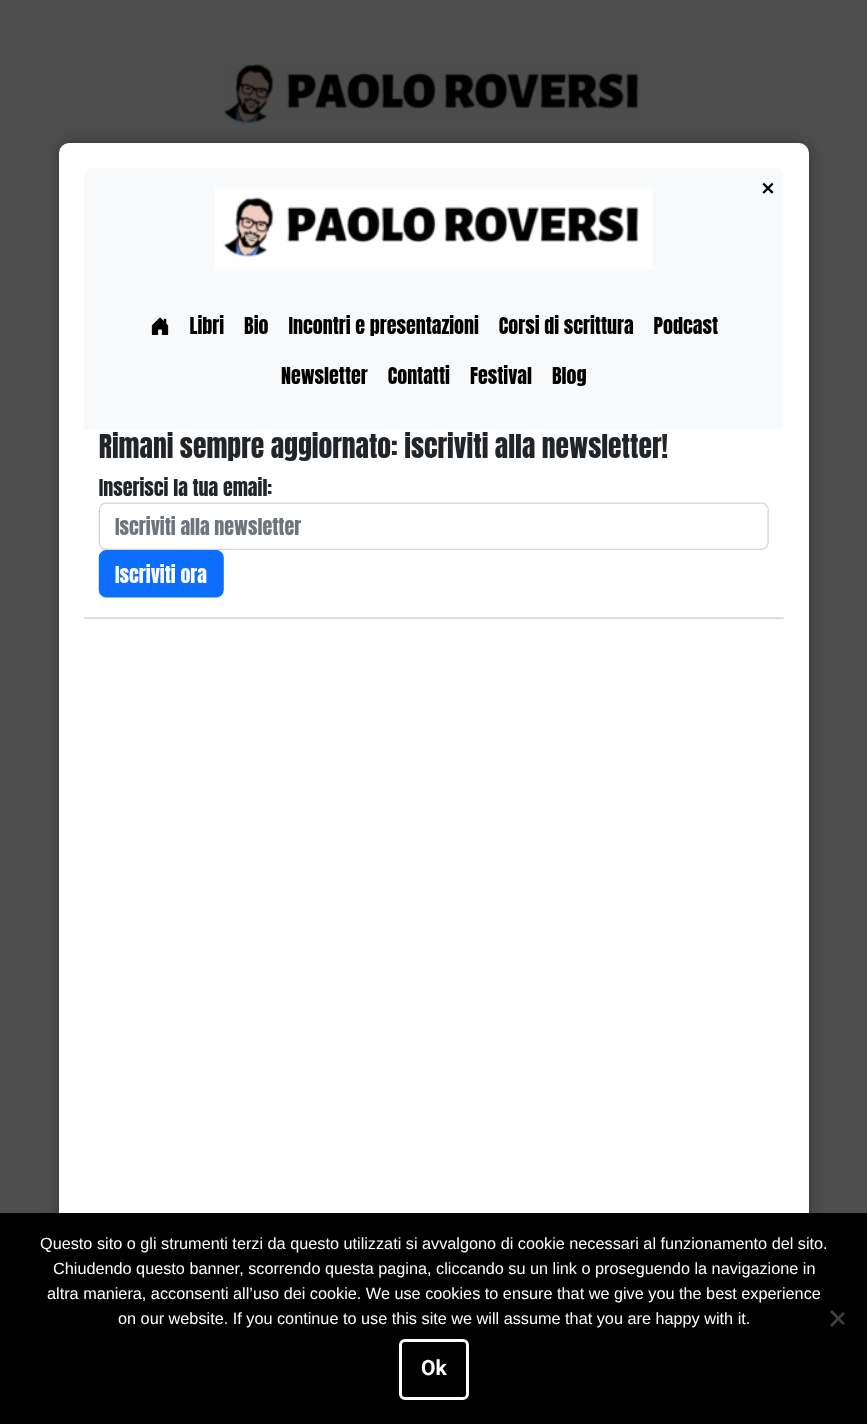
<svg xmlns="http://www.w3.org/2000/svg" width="867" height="1424">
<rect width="100%" height="100%" fill="#4d4d4d"/>
<image x="223" y="63" width="417" height="62" href="media/1.png"/>
<rect x="59" y="143" width="750" height="1140" rx="10" fill="#0000004d" filter="blur(6px)"/>
<rect x="59" y="143" width="750" height="1140" rx="10" fill="#fff"/>
<image x="84" y="168" width="700" height="451" href="media/2.png"/>
<text x="760" y="199" style="font-family:Lora;font-size:30px;font-weight:bold;fill:#000">×</text>
<rect y="1213" width="867" height="211" fill="#000"/>
<text x="40" y="1249" style="font-family:Liberation Sans;font-size:16.25px;fill:#fff">Questo sito o gli strumenti terzi da questo utilizzati si avvalgono di cookie necessari al funzionamento del sito.</text>
<text x="53" y="1274" style="font-family:Liberation Sans;font-size:16.25px;fill:#fff">Chiudendo questo banner, scorrendo questa pagina, cliccando su un link o proseguendo la navigazione in</text>
<text x="47" y="1299" style="font-family:Liberation Sans;font-size:16.25px;fill:#fff">altra maniera, acconsenti all’uso dei cookie. We use cookies to ensure that we give you the best experience</text>
<text x="118" y="1324" style="font-family:Liberation Sans;font-size:16.25px;fill:#fff">on our website. If you continue to use this site we will assume that you are happy with it.</text>
<path d="M843 1312l2 1.5l-13 13.5l-2-2z" fill="#404040"/>
<path d="M830 1312l2-2l13 13.5l-2 1.5z" fill="#404040"/>
<rect x="400.5" y="1340.5" width="67" height="58" rx="4.5" fill="none" stroke="#fff" stroke-width="3"/>
<text x="421" y="1375" style="font-family:Roboto;font-size:21px;font-weight:bold;fill:#fff">Ok</text>
</svg>
